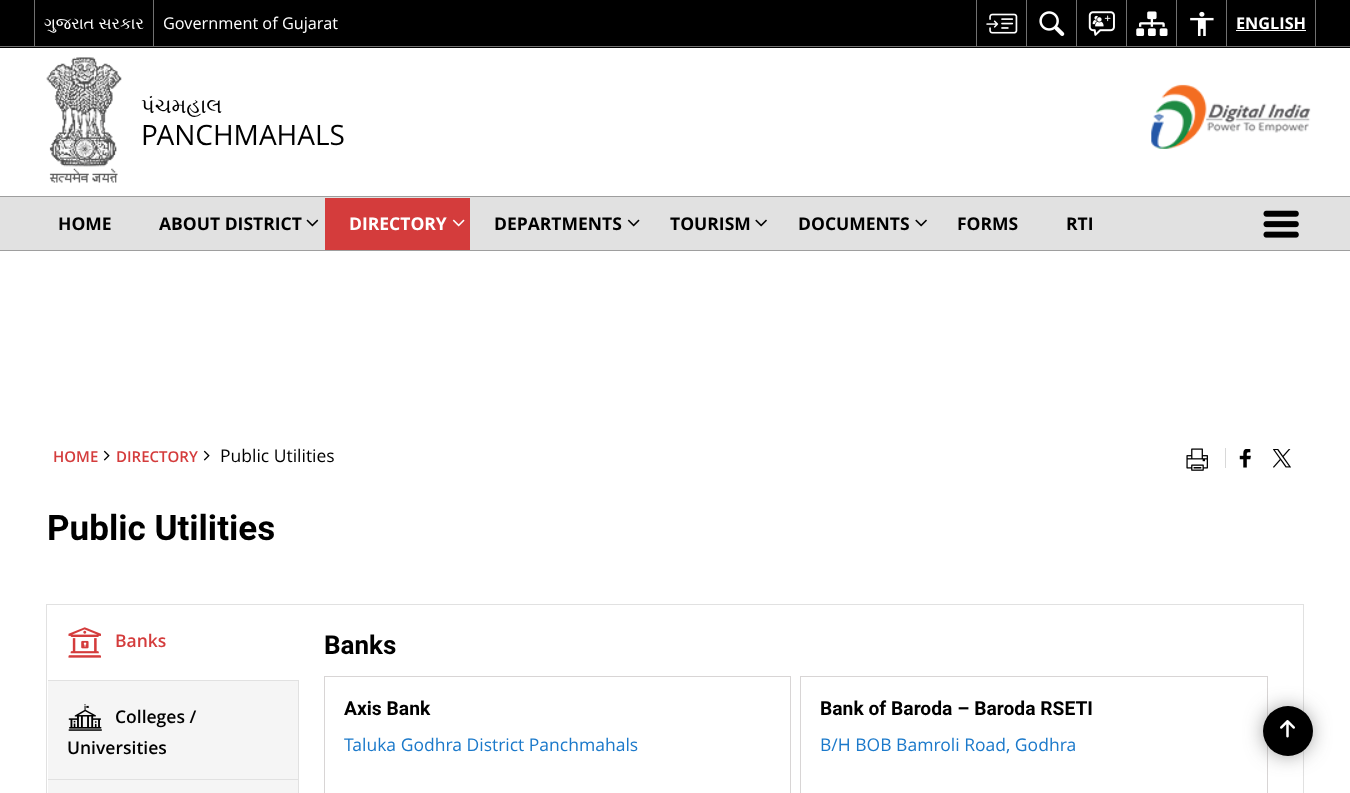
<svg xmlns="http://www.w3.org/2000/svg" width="1350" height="793">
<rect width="100%" height="100%" fill="#fff"/>
<rect width="1350" height="48" fill="#000"/>
<rect y="46" width="1350" height="1" fill="#707070"/>
<rect x="34" width="1" height="46" fill="#707070"/>
<text x="44" y="29" style="font-family:FreeSerif;font-size:16.25px;fill:#fff">ગુજરાત સરકાર</text>
<rect x="153" width="1" height="46" fill="#707070"/>
<text x="163" y="29" style="font-family:Open Sans;font-size:16.25px;fill:#fff">Government of Gujarat</text>
<rect x="976" width="1" height="46" fill="#707070"/>
<image x="986" y="13" width="32" height="21" href="media/1.png"/>
<rect x="1026" width="1" height="46" fill="#707070"/>
<image x="1039" y="11" width="26" height="25" href="media/2.png"/>
<rect x="1076" width="1" height="46" fill="#707070"/>
<image x="1088" y="11" width="27" height="25" href="media/3.png"/>
<rect x="1126" width="1" height="46" fill="#707070"/>
<image x="1136" y="11" width="32" height="25" href="media/4.png"/>
<rect x="1176" width="1" height="46" fill="#707070"/>
<image x="1190" y="11" width="24" height="25" href="media/5.png"/>
<rect x="1315" width="1" height="46" fill="#707070"/>
<rect x="1226" width="1" height="46" fill="#707070"/>
<text x="1236" y="29" style="font-family:Open Sans;font-size:16.25px;font-weight:bold;fill:#fff">ENGLISH</text>
<rect x="1236" y="30" width="70" height="1" fill="#fff"/>
<image x="46" y="57" width="76" height="126" href="media/6.png"/>
<text x="141" y="113" style="font-family:FreeSerif;font-size:21px;fill:#000">પંચમહાલ</text>
<text x="141" y="145" style="font-family:Open Sans;font-size:28px;fill:#000">PANCHMAHALS</text>
<image x="1151" y="84" width="160" height="65" href="media/7.png"/>
<rect y="197" width="1350" height="53" fill="#e1e1e1"/>
<rect y="196" width="1350" height="1" fill="#9e9e9e"/>
<rect y="250" width="1350" height="1" fill="#9e9e9e"/>
<text x="58" y="230" style="font-family:Open Sans;font-size:17.5px;font-weight:bold;fill:#000">HOME</text>
<text x="159" y="230" style="font-family:Open Sans;font-size:17.5px;font-weight:bold;fill:#000">ABOUT DISTRICT</text>
<image x="306" y="219" width="13" height="8" href="media/8.png"/>
<rect x="325" y="198" width="145" height="52" fill="#d43c3c"/>
<text x="349" y="230" style="font-family:Open Sans;font-size:17.5px;font-weight:bold;fill:#fff">DIRECTORY</text>
<image x="452" y="219" width="13" height="8" href="media/9.png"/>
<text x="494" y="230" style="font-family:Open Sans;font-size:17.5px;font-weight:bold;fill:#000">DEPARTMENTS</text>
<image x="627" y="219" width="13" height="8" href="media/10.png"/>
<text x="670" y="230" style="font-family:Open Sans;font-size:17.5px;font-weight:bold;fill:#000">TOURISM</text>
<image x="755" y="219" width="12" height="8" href="media/11.png"/>
<text x="798" y="230" style="font-family:Open Sans;font-size:17.5px;font-weight:bold;fill:#000">DOCUMENTS</text>
<image x="915" y="219" width="12" height="8" href="media/11.png"/>
<text x="957" y="230" style="font-family:Open Sans;font-size:17.5px;font-weight:bold;fill:#000">FORMS</text>
<text x="1066" y="230" style="font-family:Open Sans;font-size:17.5px;font-weight:bold;fill:#000">RTI</text>
<image x="1263" y="210" width="36" height="28" href="media/12.png"/>
<text x="53" y="462" style="font-family:Open Sans;font-size:15px;font-weight:600;fill:#d43c3c">HOME</text>
<image x="103" y="450" width="7" height="11" href="media/13.png"/>
<text x="116" y="462" style="font-family:Open Sans;font-size:15px;font-weight:600;fill:#d43c3c">DIRECTORY</text>
<image x="203" y="450" width="7" height="11" href="media/13.png"/>
<text x="220" y="462" style="font-family:Open Sans;font-size:17.5px;fill:#000">Public Utilities</text>
<image x="1186" y="448" width="22" height="23" href="media/14.png"/>
<rect x="1225" y="448" width="1" height="20" fill="#d8d8d8"/>
<image x="1239" y="449" width="12" height="19" href="media/15.png"/>
<image x="1273" y="449" width="18" height="19" href="media/16.png"/>
<text x="47" y="540" style="font-family:Roboto;font-size:35px;font-weight:bold;fill:#000">Public Utilities</text>
<rect x="46.5" y="604.5" width="1257" height="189" fill="none" stroke="#e1e1e1"/>
<rect x="48" y="680" width="251" height="1" fill="#e1e1e1"/>
<image x="68" y="627" width="33" height="31" href="media/17.png"/>
<text x="115" y="647" style="font-family:Open Sans;font-size:17.5px;font-weight:600;fill:#d43c3c">Banks</text>
<rect x="48" y="681" width="250" height="98" fill="#f5f5f5"/>
<rect x="298" y="681" width="1" height="112" fill="#e1e1e1"/>
<rect x="48" y="779" width="251" height="1" fill="#e1e1e1"/>
<image x="68" y="704" width="34" height="27" href="media/18.png"/>
<text x="115" y="723" style="font-family:Open Sans;font-size:17.5px;font-weight:600;fill:#000">Colleges /</text>
<text x="67" y="754" style="font-family:Open Sans;font-size:17.5px;font-weight:600;fill:#000">Universities</text>
<rect x="48" y="780" width="250" height="13" fill="#f5f5f5"/>
<text x="324" y="654" style="font-family:Roboto;font-size:26px;font-weight:bold;fill:#000">Banks</text>
<rect x="324.5" y="676.5" width="466" height="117" fill="none" stroke="#d8d5d5"/>
<text x="344" y="715" style="font-family:Roboto;font-size:19.25px;font-weight:bold;fill:#000">Axis Bank</text>
<text x="344" y="751" style="font-family:Open Sans;font-size:17.5px;fill:#1b79ca">Taluka Godhra District Panchmahals</text>
<rect x="800.5" y="676.5" width="467" height="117" fill="none" stroke="#d8d5d5"/>
<text x="820" y="715" style="font-family:Roboto;font-size:19.25px;font-weight:bold;fill:#000">Bank of Baroda – Baroda RSETI</text>
<text x="820" y="751" style="font-family:Open Sans;font-size:17.5px;fill:#1b79ca">B/H BOB Bamroli Road, Godhra</text>
<rect x="1269" y="713" width="37" height="37" rx="18.5" fill="#3c3c3c" filter="blur(12px)"/>
<circle cx="1288" cy="731" r="25" fill="#000"/>
<image x="1280" y="720" width="15" height="18" href="media/19.png"/>
</svg>
